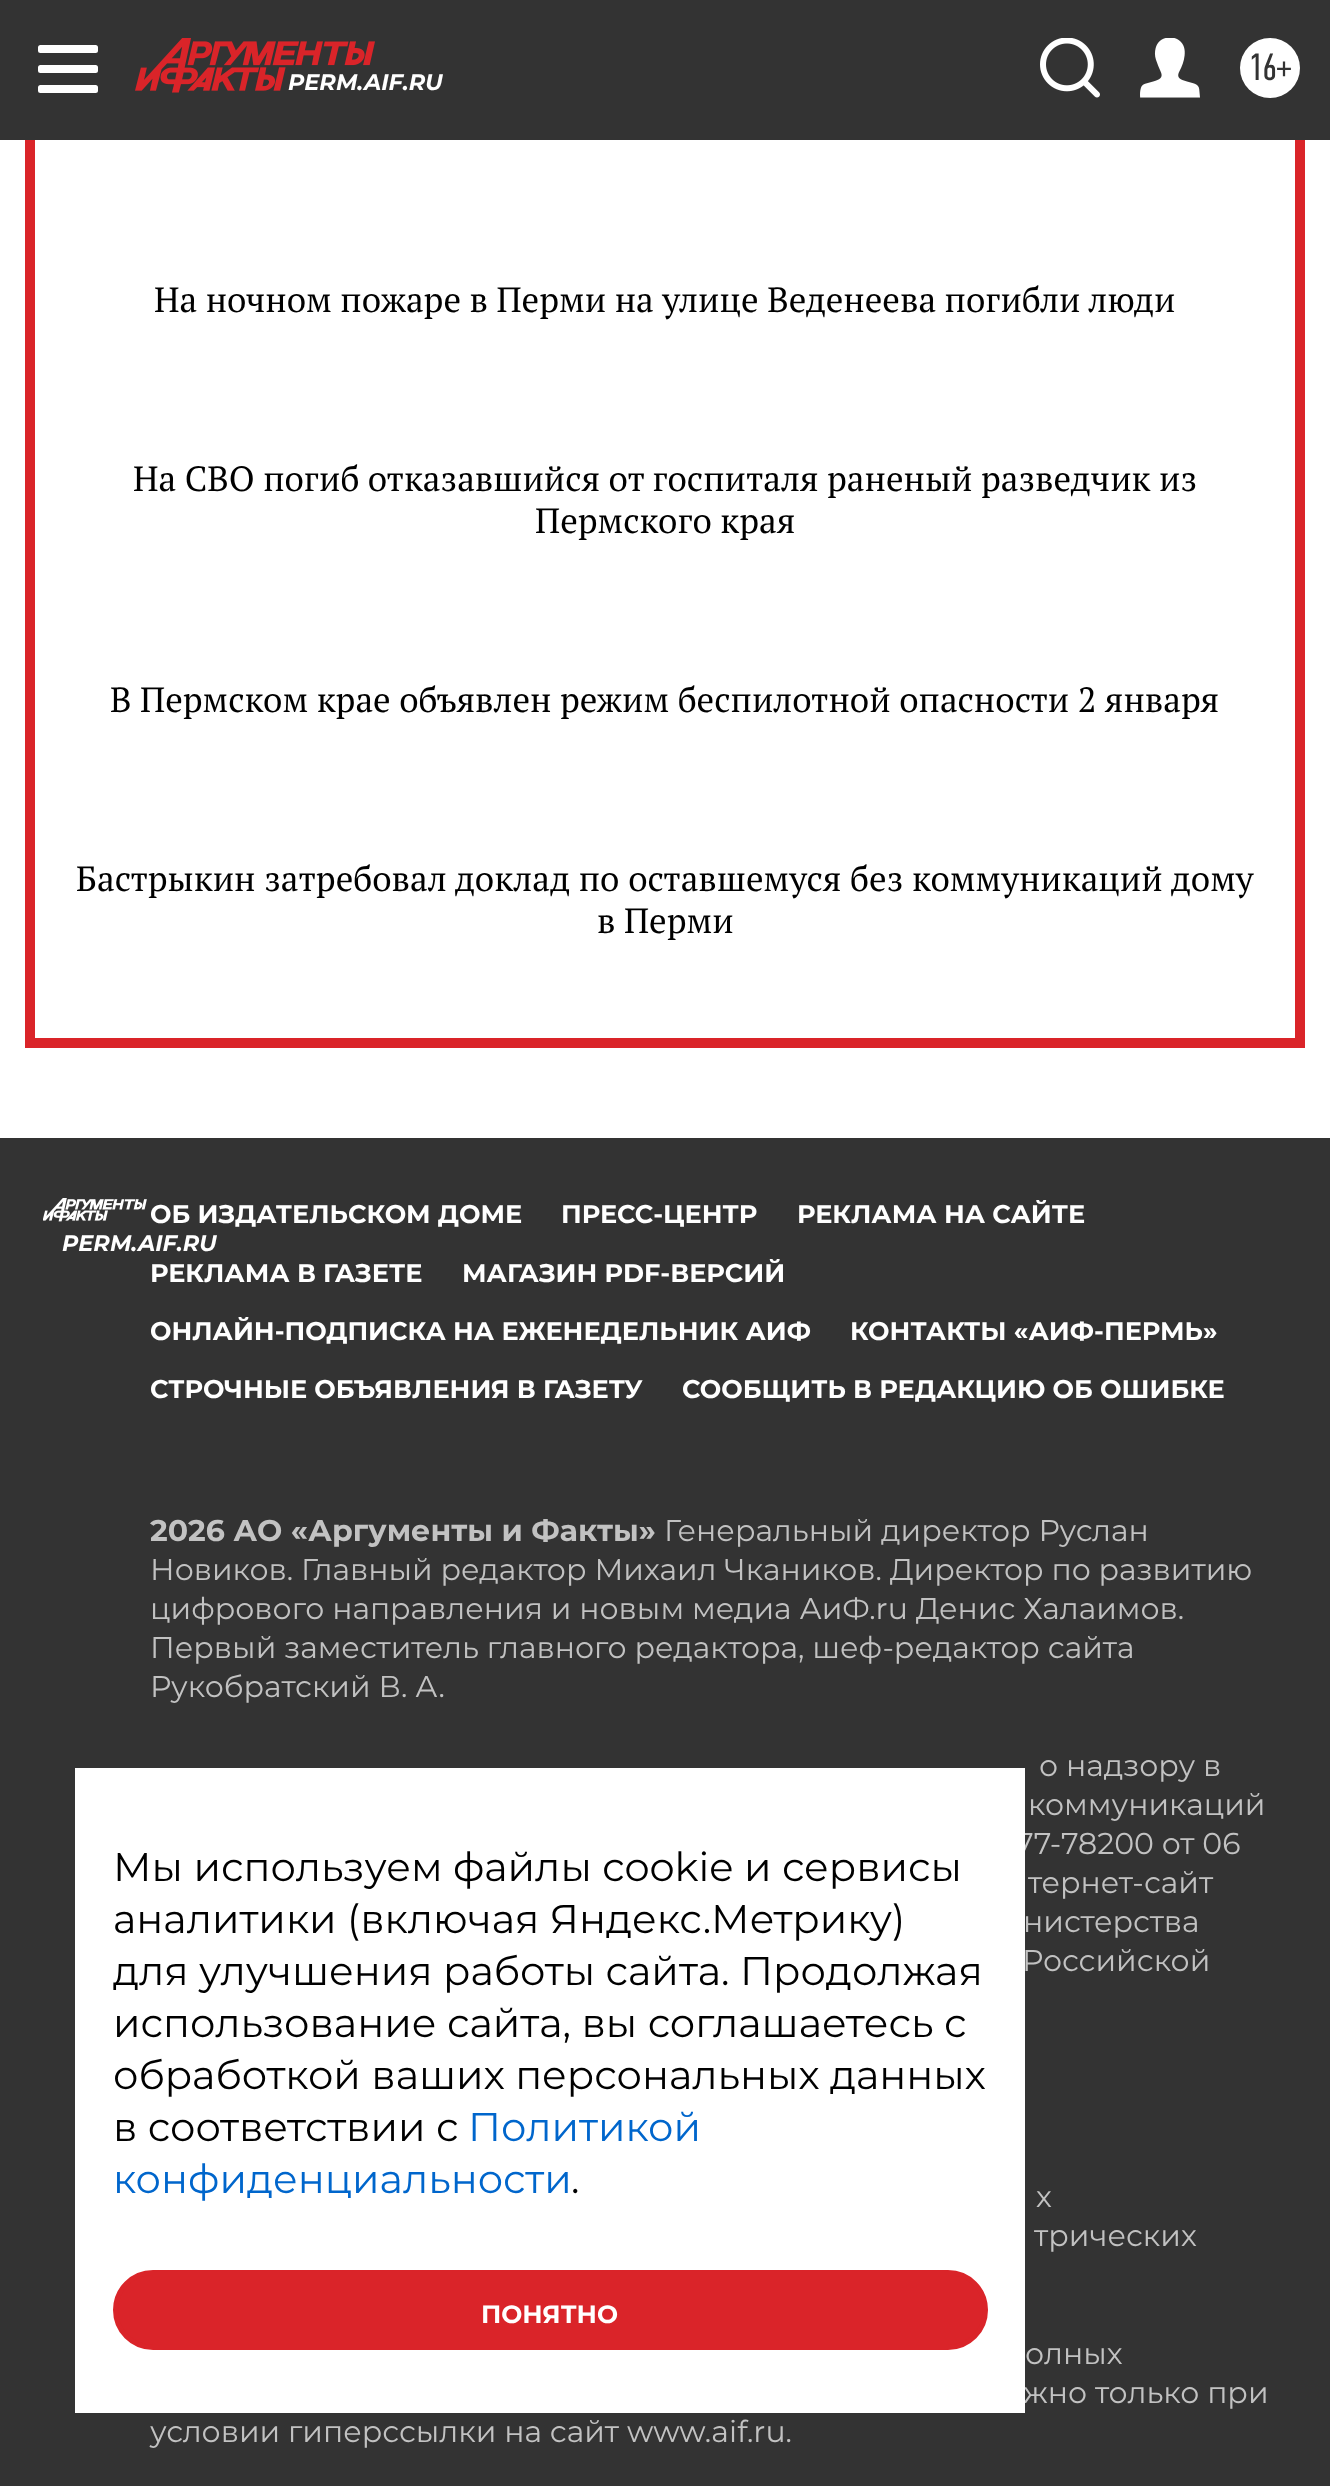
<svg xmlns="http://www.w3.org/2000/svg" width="1330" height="2486">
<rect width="100%" height="100%" fill="#fff"/>
<rect width="1330" height="140" fill="#333"/>
<rect x="38" y="45" width="60" height="8" rx="2.5" fill="#fff"/>
<rect x="38" y="65" width="60" height="8" rx="2.5" fill="#fff"/>
<rect x="38" y="85" width="60" height="8" rx="2.5" fill="#fff"/>
<image x="135" y="38" width="240" height="55" href="media/1.png"/>
<text x="288" y="90" style="font-family:Montserrat;font-size:22.5px;font-weight:bold;font-style:italic;fill:#fff">PERM.AIF.RU</text>
<image x="1040" y="38" width="60" height="60" href="media/2.png"/>
<image x="1140" y="38" width="60" height="60" href="media/3.png"/>
<circle cx="1270" cy="68" r="30" fill="#fff"/>
<text x="1248" y="80" style="font-family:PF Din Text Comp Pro;font-size:38px;fill:#333">16+</text>
<rect x="1295" y="140" width="10" height="898" fill="#da2429"/>
<rect x="35" y="1038" width="1270" height="10" fill="#da2429"/>
<rect x="25" y="140" width="10" height="908" fill="#da2429"/>
<text x="154" y="312" style="font-family:PT Serif;font-size:35px;fill:#000">На ночном пожаре в Перми на улице Веденеева погибли люди</text>
<text x="133" y="491" style="font-family:PT Serif;font-size:35px;fill:#000">На СВО погиб отказавшийся от госпиталя раненый разведчик из</text>
<text x="535" y="533" style="font-family:PT Serif;font-size:35px;fill:#000">Пермского края</text>
<text x="110" y="712" style="font-family:PT Serif;font-size:35px;fill:#000">В Пермском крае объявлен режим беспилотной опасности 2 января</text>
<text x="76" y="891" word-spacing="0.25" style="font-family:PT Serif;font-size:35px;fill:#000">Бастрыкин затребовал доклад по оставшемуся без коммуникаций дому</text>
<text x="597" y="933" style="font-family:PT Serif;font-size:35px;fill:#000">в Перми</text>
<rect y="1138" width="1330" height="1348" fill="#333"/>
<image x="43" y="1198" width="104" height="24" href="media/4.png"/>
<text x="62" y="1251" style="font-family:Montserrat;font-size:22.5px;font-weight:bold;font-style:italic;fill:#fff">PERM.AIF.RU</text>
<text x="150" y="1223" style="font-family:Montserrat;font-size:25.5px;font-weight:bold;fill:#fff">ОБ ИЗДАТЕЛЬСКОМ ДОМЕ</text>
<text x="561" y="1223" style="font-family:Montserrat;font-size:25.5px;font-weight:bold;fill:#fff">ПРЕСС-ЦЕНТР</text>
<text x="797" y="1223" style="font-family:Montserrat;font-size:25.5px;font-weight:bold;fill:#fff">РЕКЛАМА НА САЙТЕ</text>
<text x="150" y="1282" style="font-family:Montserrat;font-size:25.5px;font-weight:bold;fill:#fff">РЕКЛАМА В ГАЗЕТЕ</text>
<text x="462" y="1282" style="font-family:Montserrat;font-size:25.5px;font-weight:bold;fill:#fff">МАГАЗИН PDF-ВЕРСИЙ</text>
<text x="150" y="1340" style="font-family:Montserrat;font-size:25.5px;font-weight:bold;fill:#fff">ОНЛАЙН-ПОДПИСКА НА ЕЖЕНЕДЕЛЬНИК АИФ</text>
<text x="850" y="1340" style="font-family:Montserrat;font-size:25.5px;font-weight:bold;fill:#fff">КОНТАКТЫ «АИФ-ПЕРМЬ»</text>
<text x="150" y="1398" style="font-family:Montserrat;font-size:25.5px;font-weight:bold;fill:#fff">СТРОЧНЫЕ ОБЪЯВЛЕНИЯ В ГАЗЕТУ</text>
<text x="682" y="1398" style="font-family:Montserrat;font-size:25.5px;font-weight:bold;fill:#fff">СООБЩИТЬ В РЕДАКЦИЮ ОБ ОШИБКЕ</text>
<text x="150" y="1541" style="font-family:Montserrat;font-size:30px;font-weight:bold;fill:#c2c2c2">2026 АО «Аргументы и Факты»</text>
<text x="664" y="1541" style="font-family:Montserrat;font-size:30px;fill:#c2c2c2">Генеральный директор Руслан</text>
<text x="150" y="1580" style="font-family:Montserrat;font-size:30px;fill:#c2c2c2">Новиков. Главный редактор Михаил Чкаников. Директор по развитию</text>
<text x="150" y="1619" style="font-family:Montserrat;font-size:30px;fill:#c2c2c2">цифрового направления и новым медиа АиФ.ru Денис Халаимов.</text>
<text x="150" y="1658" style="font-family:Montserrat;font-size:30px;fill:#c2c2c2">Первый заместитель главного редактора, шеф-редактор сайта</text>
<text x="150" y="1697" style="font-family:Montserrat;font-size:30px;fill:#c2c2c2">Рукобратский В. А.</text>
<text x="1039" y="1776" style="font-family:Montserrat;font-size:30px;fill:#c2c2c2">о надзору в</text>
<text x="1028" y="1815" style="font-family:Montserrat;font-size:30px;fill:#c2c2c2">коммуникаций</text>
<text x="1016" y="1854" style="font-family:Montserrat;font-size:30px;fill:#c2c2c2">77-78200 от 06</text>
<text x="1028" y="1893" style="font-family:Montserrat;font-size:30px;fill:#c2c2c2">тернет-сайт</text>
<text x="1023" y="1932" style="font-family:Montserrat;font-size:30px;fill:#c2c2c2">нистерства</text>
<text x="1022" y="1971" style="font-family:Montserrat;font-size:30px;fill:#c2c2c2">Российской</text>
<text x="1036" y="2207" style="font-family:Montserrat;font-size:30px;fill:#c2c2c2">х</text>
<text x="1034" y="2246" style="font-family:Montserrat;font-size:30px;fill:#c2c2c2">трических</text>
<text x="1025" y="2364" style="font-family:Montserrat;font-size:30px;fill:#c2c2c2">олных</text>
<text x="1023" y="2403" style="font-family:Montserrat;font-size:30px;fill:#c2c2c2">жно только при</text>
<text x="150" y="2442" style="font-family:Montserrat;font-size:30px;fill:#c2c2c2">условии гиперссылки на сайт www.aif.ru.</text>
<rect x="75" y="1768" width="950" height="645" fill="#fff"/>
<text x="113" y="1881" style="font-family:Montserrat;font-size:40px;fill:#000">Мы используем файлы cookie и сервисы</text>
<text x="113" y="1933" style="font-family:Montserrat;font-size:40px;fill:#000">аналитики (включая Яндекс.Метрику)</text>
<text x="113" y="1985" style="font-family:Montserrat;font-size:40px;fill:#000">для улучшения работы сайта. Продолжая</text>
<text x="113" y="2037" style="font-family:Montserrat;font-size:40px;fill:#000">использование сайта, вы соглашаетесь с</text>
<text x="113" y="2089" style="font-family:Montserrat;font-size:40px;fill:#000">обработкой ваших персональных данных</text>
<text x="113" y="2141" style="font-family:Montserrat;font-size:40px;fill:#000">в соответствии с</text>
<text x="468" y="2141" style="font-family:Montserrat;font-size:40px;fill:#06c">Политикой</text>
<text x="113" y="2193" style="font-family:Montserrat;font-size:40px;fill:#06c">конфиденциальности</text>
<text x="571" y="2193" style="font-family:Montserrat;font-size:40px;fill:#000">.</text>
<rect x="115.5" y="2272.5" width="870" height="75" rx="37.5" fill="#da2429" stroke="#da2429" stroke-width="5"/>
<text x="481" y="2323" style="font-family:Montserrat;font-size:25px;font-weight:bold;fill:#fff">ПОНЯТНО</text>
</svg>
